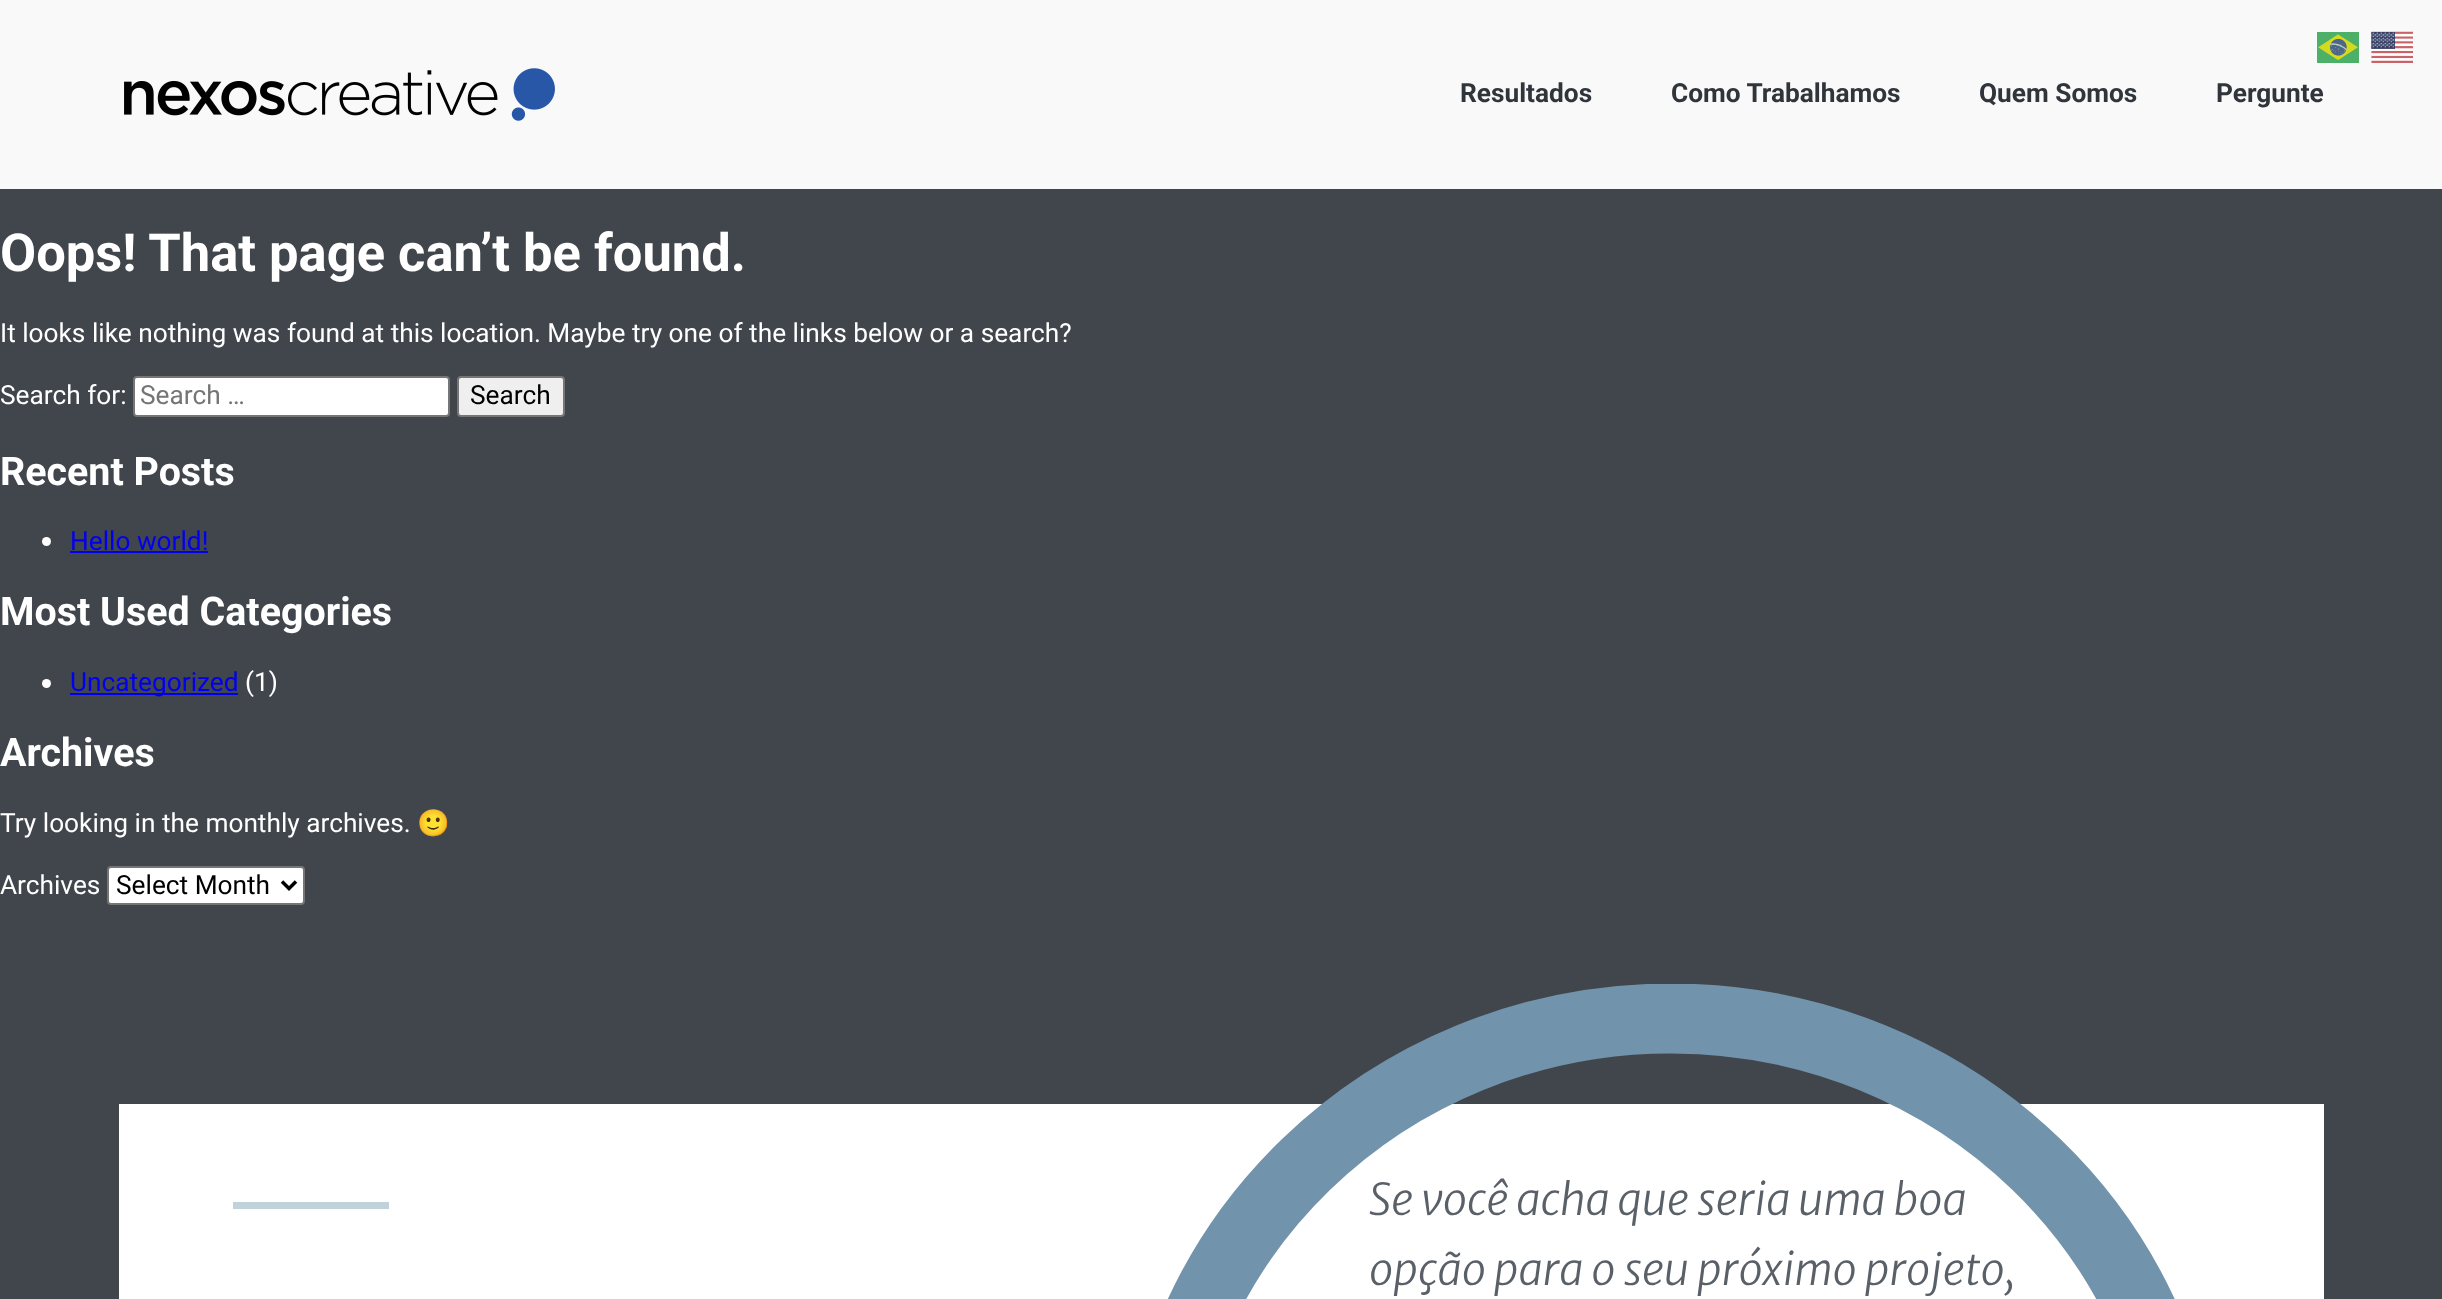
<svg xmlns="http://www.w3.org/2000/svg" width="2442" height="1299">
<defs>
<clipPath id="clip1"><rect x="119" y="984" width="2205" height="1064"/></clipPath>
</defs>
<rect width="100%" height="100%" fill="#41464c"/>
<rect width="2442" height="189" fill="#f9f9f9"/>
<image x="2317" y="32" width="42" height="31" href="media/1.png"/>
<image x="2371" y="31" width="42" height="32" href="media/2.png"/>
<image x="124" y="68" width="431" height="53" href="media/3.png"/>
<text x="1460" y="102" style="font-family:Roboto;font-size:26.25px;font-weight:bold;fill:#30353b">Resultados</text>
<text x="1671" y="102" style="font-family:Roboto;font-size:26.25px;font-weight:bold;fill:#30353b">Como Trabalhamos</text>
<text x="1979" y="102" style="font-family:Roboto;font-size:26.25px;font-weight:bold;fill:#30353b">Quem Somos</text>
<text x="2216" y="102" style="font-family:Roboto;font-size:26.25px;font-weight:bold;fill:#30353b">Pergunte</text>
<text x="0" y="271" style="font-family:Roboto;font-size:52.5px;font-weight:bold;fill:#fff">Oops! That page can’t be found.</text>
<text x="0" y="342" style="font-family:Roboto;font-size:26.25px;fill:#fff">It looks like nothing was found at this location. Maybe try one of the links below or a search?</text>
<text x="0" y="404" style="font-family:Roboto;font-size:26.25px;fill:#fff">Search for:</text>
<rect x="134" y="377" width="315" height="39" rx="3" fill="#fff" stroke="#767676" stroke-width="2"/>
<text x="140" y="404" style="font-family:Roboto;font-size:26.25px;fill:#757575">Search …</text>
<rect x="458" y="377" width="106" height="39" rx="3" fill="#efefef" stroke="#767676" stroke-width="2"/>
<text x="470" y="404" style="font-family:Roboto;font-size:26.25px;fill:#000">Search</text>
<text x="0" y="485" style="font-family:Roboto;font-size:39.4px;font-weight:bold;fill:#fff">Recent Posts</text>
<circle cx="46.5" cy="541.5" r="4.5" fill="#fff"/>
<text x="70" y="550" style="font-family:Roboto;font-size:26.25px;fill:#00e">Hello world!</text>
<rect x="70" y="551" width="138" height="2" fill="#00e"/>
<text x="0" y="625" style="font-family:Roboto;font-size:39.4px;font-weight:bold;fill:#fff">Most Used Categories</text>
<circle cx="46.5" cy="683.5" r="4.5" fill="#fff"/>
<rect x="70" y="693" width="168" height="2" fill="#00e"/>
<text x="70" y="691" style="font-family:Roboto;font-size:26.25px;fill:#00e">Uncategorized</text>
<text x="245" y="691" style="font-family:Roboto;font-size:26.25px;fill:#fff">(1)</text>
<text x="0" y="766" style="font-family:Roboto;font-size:39.4px;font-weight:bold;fill:#fff">Archives</text>
<text x="0" y="832" style="font-family:Roboto;font-size:26.25px;fill:#fff">Try looking in the monthly archives.</text>
<text x="417" y="832" style="font-family:Noto Color Emoji;font-size:26.25px;fill:#fff">🙂</text>
<text x="0" y="894" style="font-family:Roboto;font-size:26.25px;fill:#fff">Archives</text>
<rect x="108" y="867" width="196" height="37" rx="3" fill="#fff" stroke="#767676" stroke-width="2"/>
<path d="M282 881.5l7 7l7-7" fill="none" stroke="#000" stroke-width="3.5"/>
<text x="116" y="894" style="font-family:Roboto;font-size:26.25px;fill:#000">Select Month</text>
<rect x="119" y="1104" width="2205" height="195" fill="#fff"/>
<rect x="233" y="1202" width="156" height="7" fill="#c0d2da"/>
<text x="1369" y="1215" style="font-family:Merriweather Sans;font-size:43.75px;font-weight:300;font-style:italic;fill:#5a6067">Se você acha que seria uma boa</text>
<text x="1369" y="1285" style="font-family:Merriweather Sans;font-size:43.75px;font-weight:300;font-style:italic;fill:#5a6067">opção para o seu próximo projeto,</text>
<g clip-path="url(#clip1)">
<path d="M1671 1018.5c285.5 0 516.5 223 516.5 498c0 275-231 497.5-516.5 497.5c-285 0-516-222.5-516-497.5c0-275 231-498 516-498z" fill="none" stroke="#7193ac" stroke-width="70"/>
</g>
</svg>
